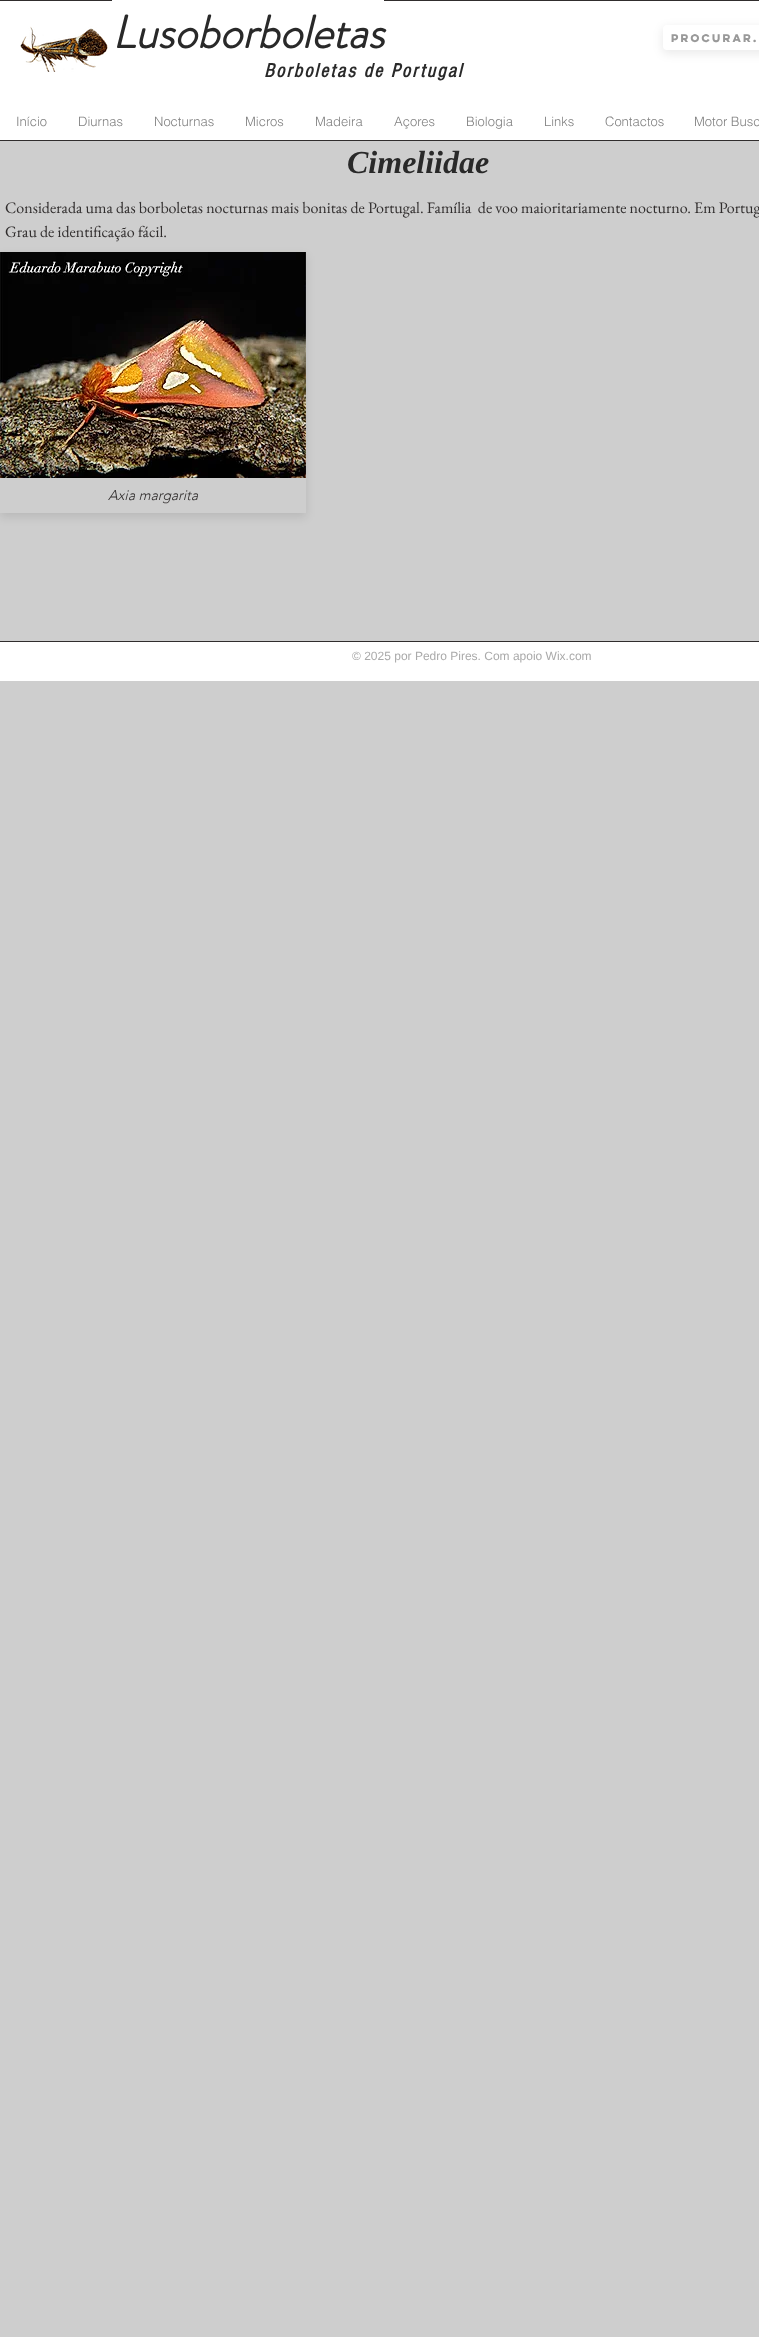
<svg xmlns="http://www.w3.org/2000/svg" width="759" height="2337">
<defs>
<clipPath id="clip1"><path d="M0 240h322v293h-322zm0 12h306v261h-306z" clip-rule="evenodd"/></clipPath>
</defs>
<rect width="100%" height="100%" fill="#cecece"/>
<rect width="759" height="1" fill="#302d2d"/>
<rect y="140" width="759" height="1" fill="#302d2d"/>
<rect y="1" width="759" height="139" fill="#fff"/>
<image x="20" y="26" width="88" height="46" href="media/1.png"/>
<text x="112" y="48" style="font-family:'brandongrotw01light';font-size:46px;font-weight:bold;font-style:italic;fill:#292929">Lusoborboletas</text>
<rect x="112" width="272" height="1" fill="#fff"/>
<rect x="662" y="27" width="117" height="27" rx="5" fill="#00000014" filter="blur(5px)"/>
<rect x="663" y="25" width="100" height="25" rx="4" fill="#fff"/>
<text x="671" y="42" style="font-family:'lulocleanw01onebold';font-size:10px;font-weight:bold;fill:#999">Procurar.</text>
<text x="264" y="77" style="font-family:'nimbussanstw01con';font-size:20px;font-weight:bold;font-style:italic;letter-spacing:2px;fill:#292929">Borboletas de Portugal</text>
<text x="16" y="126" style="font-family:helvetica;font-size:13px;font-weight:300;fill:#818181">Início</text>
<text x="78" y="126" style="font-family:helvetica;font-size:13px;font-weight:300;fill:#818181">Diurnas</text>
<text x="154" y="126" style="font-family:helvetica;font-size:13px;font-weight:300;fill:#818181">Nocturnas</text>
<text x="245" y="126" style="font-family:helvetica;font-size:13px;font-weight:300;fill:#818181">Micros</text>
<text x="315" y="126" style="font-family:helvetica;font-size:13px;font-weight:300;fill:#818181">Madeira</text>
<text x="394" y="126" style="font-family:helvetica;font-size:13px;font-weight:300;fill:#818181">Açores</text>
<text x="466" y="126" style="font-family:helvetica;font-size:13px;font-weight:300;fill:#818181">Biologia</text>
<text x="544" y="126" style="font-family:helvetica;font-size:13px;font-weight:300;fill:#818181">Links</text>
<text x="605" y="126" style="font-family:helvetica;font-size:13px;font-weight:300;fill:#818181">Contactos</text>
<text x="694" y="126" style="font-family:helvetica;font-size:13px;font-weight:300;fill:#818181">Motor Busc</text>
<text x="347" y="173" style="font-family:Liberation Serif;font-size:32px;font-weight:bold;font-style:italic;fill:#292929">Cimeliidae</text>
<text x="5" y="213" style="font-family:EB Garamond;font-size:16px;fill:#302d2d" xml:space="preserve">Considerada uma das borboletas nocturnas mais bonitas de Portugal. Família  de voo maioritariamente nocturno. Em Portug</text>
<text x="5" y="237" style="font-family:EB Garamond;font-size:16px;fill:#302d2d">Grau de identificação fácil.</text>
<g clip-path="url(#clip1)">
<rect y="256" width="306" height="261" fill="#0000001a" filter="blur(5px)"/>
</g>
<image x="0" y="252" width="306" height="226" href="media/2.png"/>
<text x="108" y="500" style="font-family:'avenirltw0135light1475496';font-size:14px;font-weight:300;font-style:italic;fill:#302d2d">Axia margarita</text>
<rect y="642" width="759" height="39" fill="#fff"/>
<rect y="641" width="759" height="1" fill="#302d2d"/>
<text x="352" y="660" style="font-family:Liberation Sans;font-size:12px;fill:#aaa">© 2025 por Pedro Pires. Com apoio Wix.com</text>
</svg>
